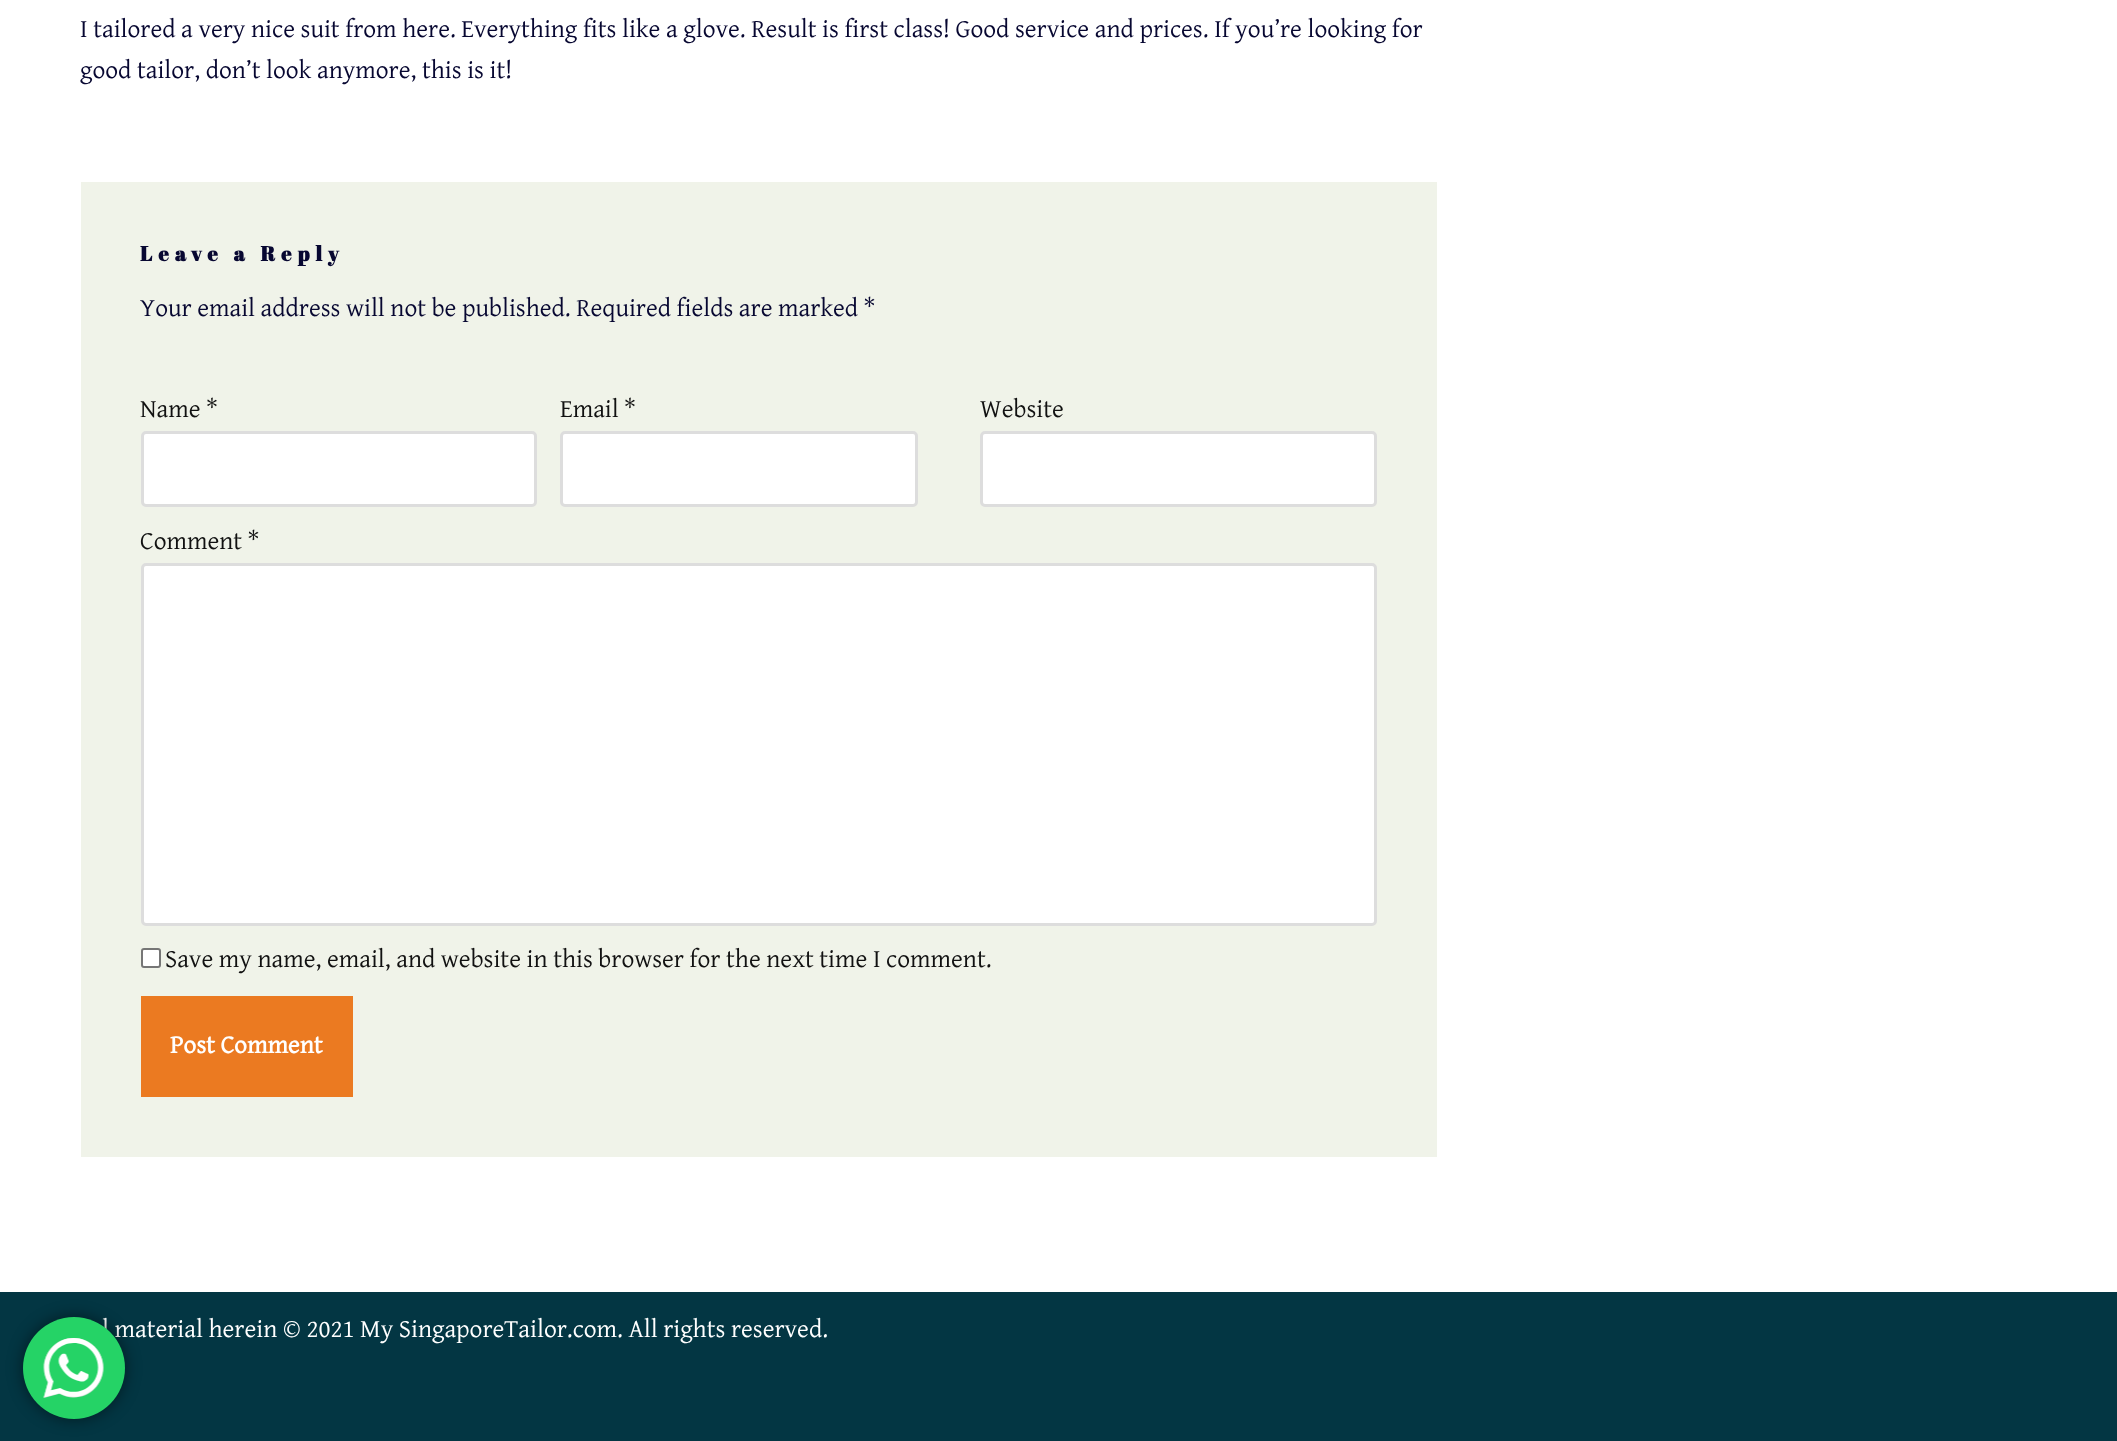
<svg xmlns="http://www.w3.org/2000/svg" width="2117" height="1441">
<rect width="100%" height="100%" fill="#fff"/>
<text x="80" y="37" style="font-family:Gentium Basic;font-size:25.5px;fill:#070731">I tailored a very nice suit from here. Everything fits like a glove. Result is first class! Good service and prices. If you’re looking for</text>
<text x="80" y="78" style="font-family:Gentium Basic;font-size:25.5px;fill:#070731">good tailor, don’t look anymore, this is it!</text>
<rect x="81" y="182" width="1356" height="975" fill="#f0f3e9"/>
<text x="140" y="261" style="font-family:Abril Fatface;font-size:20.5px;font-weight:bold;letter-spacing:6px;fill:#070731">Leave a Reply</text>
<text x="140" y="316" style="font-family:Gentium Basic;font-size:25.5px;fill:#070731">Your email address will not be published. Required fields are marked *</text>
<text x="140" y="417" style="font-family:Gentium Basic;font-size:25.5px;fill:#111">Name *</text>
<rect x="142.5" y="432.5" width="393" height="73" rx="3.5" fill="#fff" stroke="#ddd" stroke-width="3"/>
<text x="560" y="417" style="font-family:Gentium Basic;font-size:25.5px;fill:#111">Email *</text>
<rect x="561.5" y="432.5" width="355" height="73" rx="3.5" fill="#fff" stroke="#ddd" stroke-width="3"/>
<text x="980" y="417" style="font-family:Gentium Basic;font-size:25.5px;fill:#111">Website</text>
<rect x="981.5" y="432.5" width="394" height="73" rx="3.5" fill="#fff" stroke="#ddd" stroke-width="3"/>
<text x="140" y="549" style="font-family:Gentium Basic;font-size:25.5px;fill:#111">Comment *</text>
<rect x="142.5" y="564.5" width="1233" height="360" rx="3.5" fill="#fff" stroke="#ddd" stroke-width="3"/>
<rect x="142" y="949" width="18" height="18" rx="2" fill="#fff" stroke="#767676" stroke-width="2"/>
<text x="165" y="967" style="font-family:Gentium Basic;font-size:25.5px;fill:#111">Save my name, email, and website in this browser for the next time I comment.</text>
<rect x="141" y="996" width="212" height="101" fill="#eb7a21"/>
<text x="170" y="1053" style="font-family:Gentium Basic;font-size:25.5px;font-weight:bold;fill:#fff">Post Comment</text>
<rect y="1292" width="2117" height="149" fill="#033643"/>
<text x="102" y="1337" style="font-family:Gentium Basic;font-size:25.5px;fill:#fff">l material herein © 2021 My SingaporeTailor.com. All rights reserved.</text>
<rect x="23" y="1317" width="102" height="102" rx="51" fill="#00000080" filter="blur(8px)"/>
<circle cx="74" cy="1368" r="51" fill="#25d366"/>
<image x="43" y="1338" width="61" height="60" href="media/1.png"/>
</svg>
